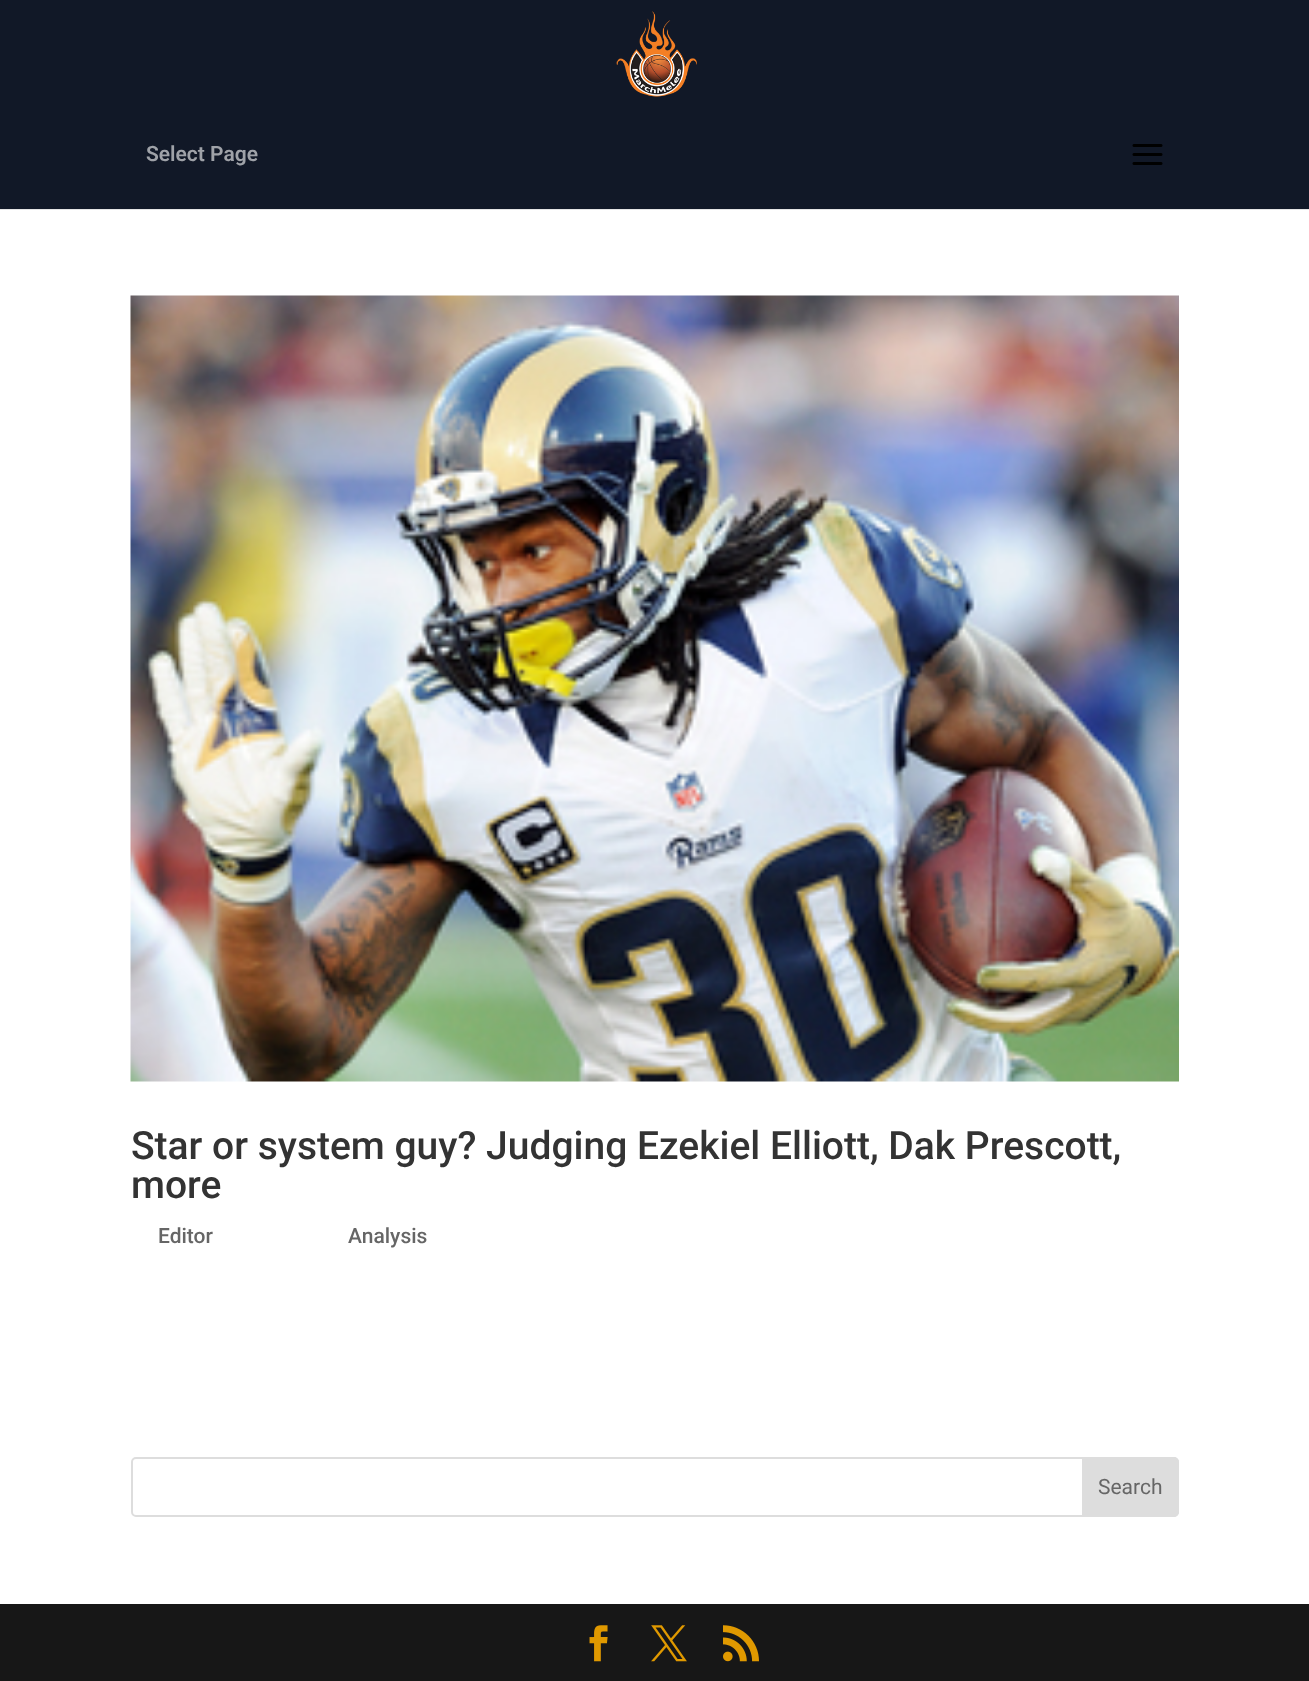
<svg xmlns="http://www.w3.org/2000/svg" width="1309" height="1681">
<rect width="100%" height="100%" fill="#fff"/>
<path d="M0 208v2h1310v-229v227z" fill="#0000001a"/>
<rect width="1309" height="209" fill="#111827"/>
<image x="616" y="11" width="81" height="86" href="media/1.png"/>
<text x="146" y="161" style="font-family:Roboto;font-size:21px;font-weight:600;fill:#9fa2a8">Select Page</text>
<image x="1132" y="144" width="31" height="21" href="media/2.png"/>
<image x="130" y="295" width="1049" height="787" href="media/3.png"/>
<text x="131" y="1159" style="font-family:Roboto;font-size:39px;font-weight:500;fill:#333">Star or system guy? Judging Ezekiel Elliott, Dak Prescott,</text>
<text x="131" y="1198" style="font-family:Roboto;font-size:39px;font-weight:500;fill:#333">more</text>
<text x="158" y="1243" style="font-family:Roboto;font-size:21px;font-weight:500;fill:#666">Editor</text>
<text x="348" y="1243" style="font-family:Roboto;font-size:21px;font-weight:500;fill:#666">Analysis</text>
<rect x="132" y="1458" width="1046" height="58" rx="4" fill="none" stroke="#ddd" stroke-width="2"/>
<path d="M1083 1458h91c2 0 4 2 4 4v50c0 2-2 4-4 4h-91z" fill="#ddd" stroke="#ddd" stroke-width="2"/>
<text x="1098" y="1494" style="font-family:Roboto;font-size:21px;fill:#666">Search</text>
<rect y="1604" width="1309" height="77" fill="#171717"/>
<image x="589" y="1625" width="19" height="37" href="media/4.png"/>
<image x="651" y="1625" width="36" height="37" href="media/5.png"/>
<image x="723" y="1625" width="36" height="37" href="media/6.png"/>
</svg>
